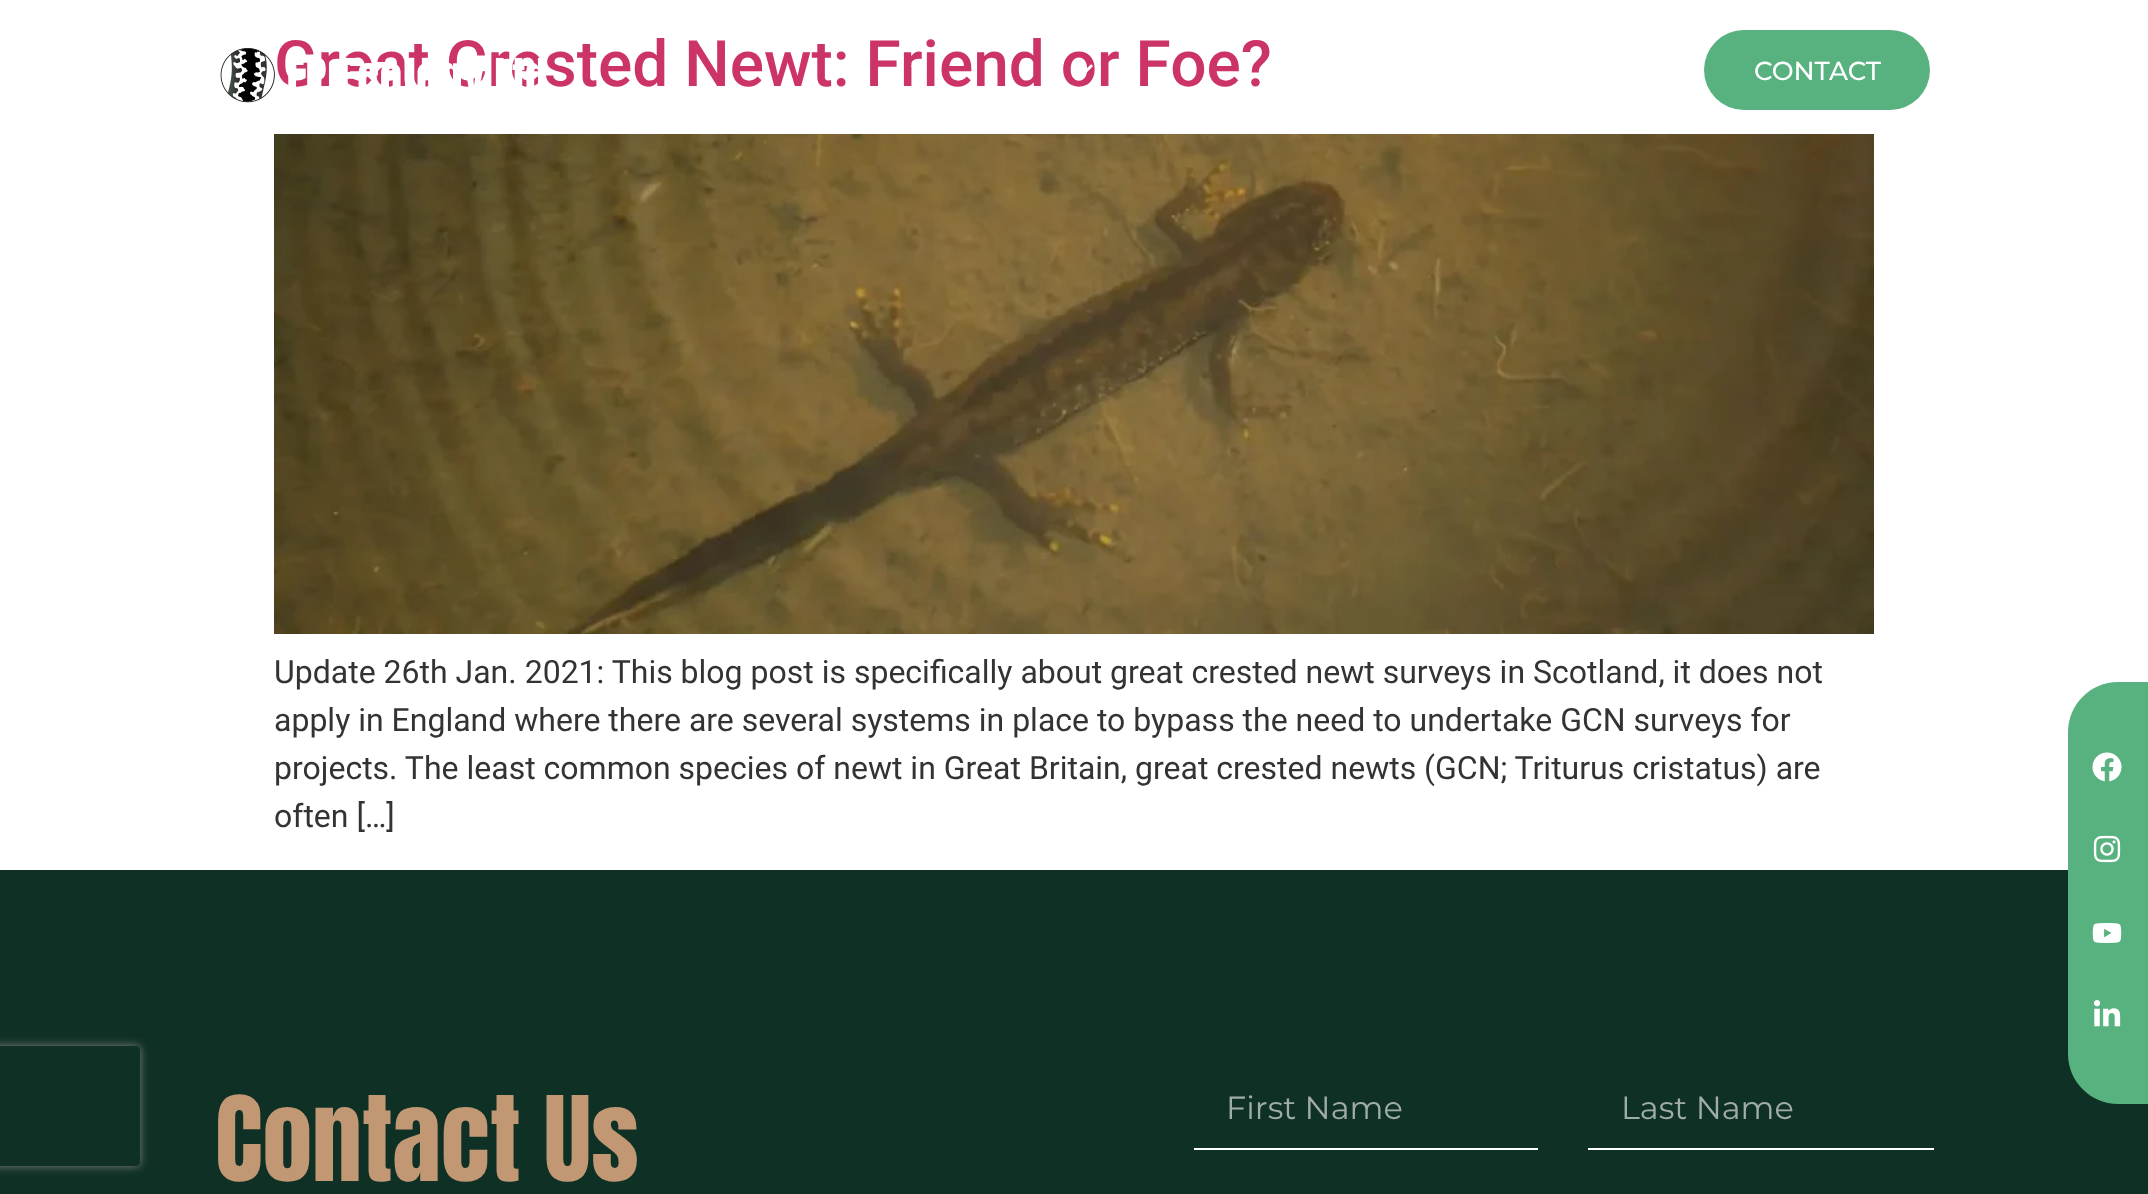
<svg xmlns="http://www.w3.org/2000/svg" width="2148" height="1194">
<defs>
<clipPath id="clip1"><path d="M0 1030h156v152h-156zm-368 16h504c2 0 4 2 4 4v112c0 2-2 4-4 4h-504c-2 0-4-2-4-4v-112c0-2 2-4 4-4z" clip-rule="evenodd"/></clipPath>
</defs>
<rect width="100%" height="100%" fill="#fff"/>
<text x="274" y="86" style="font-family:Roboto;font-size:64px;font-weight:500;fill:#c36">Great Crested Newt: Friend or Foe?</text>
<image x="274" y="134" width="1600" height="500" href="media/1.png"/>
<text x="274" y="683" style="font-family:Roboto;font-size:32px;fill:#333">Update 26th Jan. 2021: This blog post is specifically about great crested newt surveys in Scotland, it does not</text>
<text x="274" y="731" style="font-family:Roboto;font-size:32px;fill:#333">apply in England where there are several systems in place to bypass the need to undertake GCN surveys for</text>
<text x="274" y="779" style="font-family:Roboto;font-size:32px;fill:#333">projects. The least common species of newt in Great Britain, great crested newts (GCN; Triturus cristatus) are</text>
<text x="274" y="827" style="font-family:Roboto;font-size:32px;fill:#333">often […]</text>
<image x="220" y="48" width="322" height="55" href="media/2.png"/>
<image x="911" y="65" width="16" height="2" href="media/3.png"/>
<image x="1086" y="64" width="7" height="9" href="media/4.png"/>
<rect x="1704" y="30" width="226" height="80" rx="40" fill="#58b280"/>
<text x="1754" y="80" style="font-family:Montserrat;font-size:26px;font-weight:500;fill:#fff">CONTACT</text>
<rect y="870" width="2148" height="324" fill="#0f3025"/>
<path d="M2118 682h30v422h-30c-27.5 0-50-22.5-50-50v-322c0-27.5 22.5-50 50-50z" fill="#58b280"/>
<image x="2092" y="752" width="30" height="30" href="media/5.png"/>
<image x="2093" y="835" width="28" height="28" href="media/6.png"/>
<image x="2092" y="923" width="30" height="20" href="media/7.png"/>
<image x="2093" y="1000" width="28" height="27" href="media/8.png"/>
<text x="215" y="1181" style="font-family:Anton;font-size:100px;fill:#c29774">Contact Us</text>
<g clip-path="url(#clip1)">
<rect x="-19" y="1046" width="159" height="120" rx="4" fill="#808080" filter="blur(5px)"/>
</g>
<rect x="1194" y="1148" width="344" height="2" fill="#fff"/>
<text x="1226" y="1119" style="font-family:Montserrat;font-size:32px;fill:#9faca8">First Name</text>
<rect x="1588" y="1148" width="346" height="2" fill="#fff"/>
<text x="1621" y="1119" style="font-family:Montserrat;font-size:32px;fill:#9faca8">Last Name</text>
</svg>
